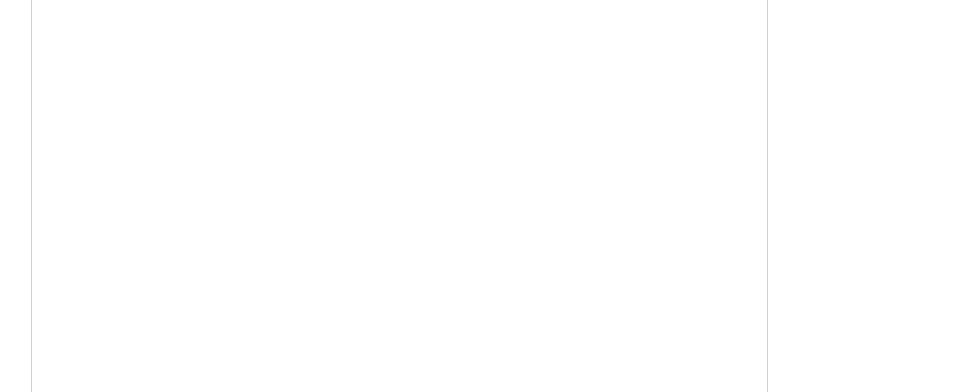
<svg xmlns="http://www.w3.org/2000/svg" width="962" height="392">
<rect width="100%" height="100%" fill="#fff"/>
<rect x="31.5" y="-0.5" width="736" height="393" fill="none" stroke="#d3d1cc"/>
</svg>
